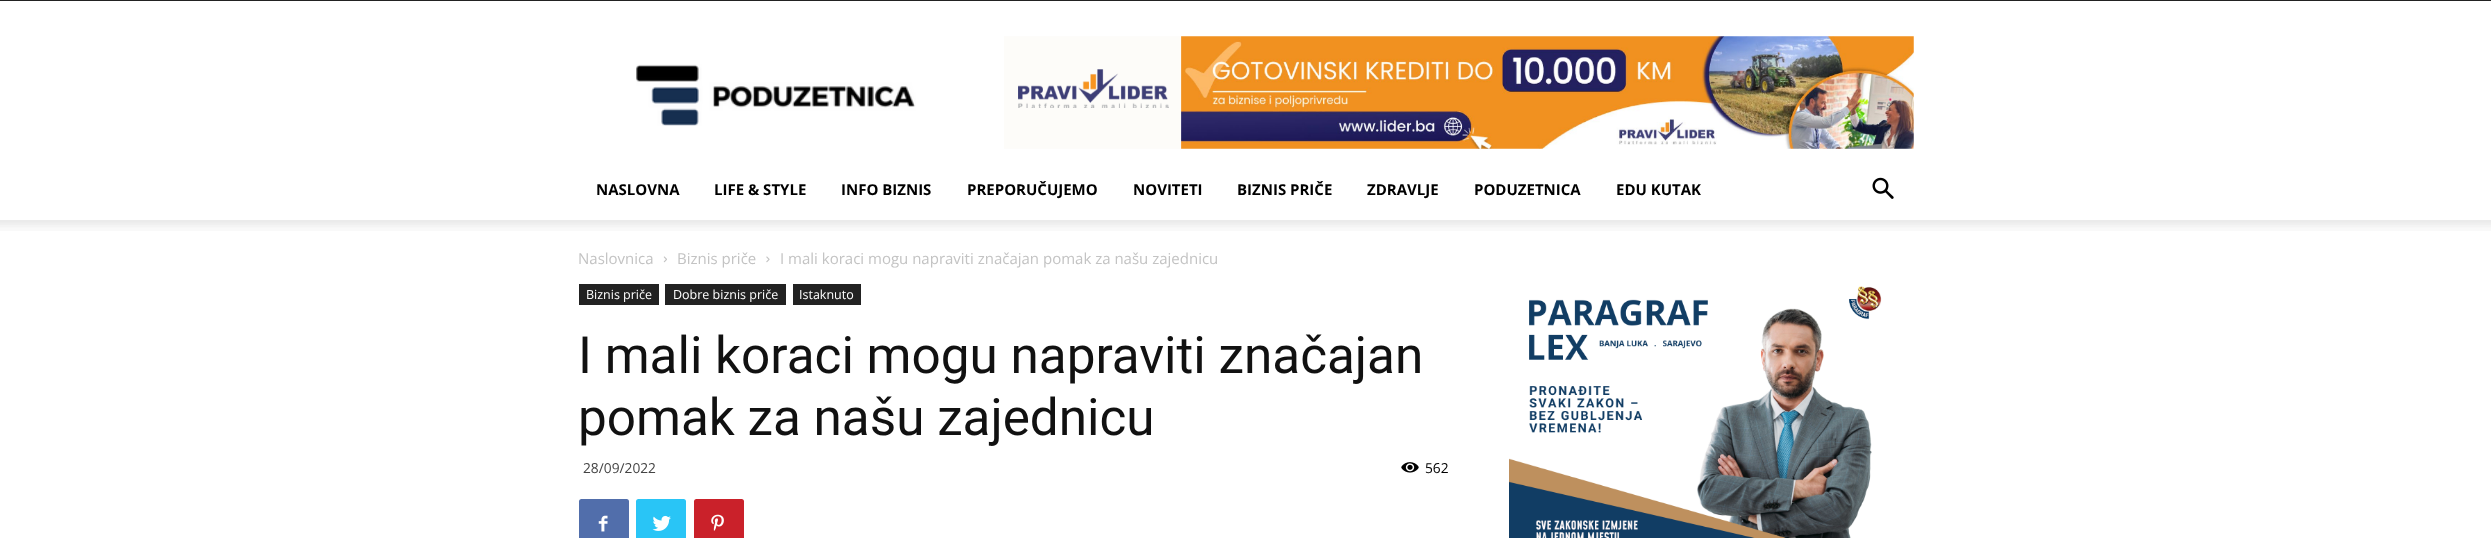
<svg xmlns="http://www.w3.org/2000/svg" width="2491" height="538">
<rect width="100%" height="100%" fill="#fff"/>
<rect width="2491" height="1" fill="#222"/>
<image x="636" y="64" width="280" height="62" href="media/1.png"/>
<image x="1004" y="36" width="910" height="113" href="media/2.png"/>
<text x="596" y="195" style="font-family:Open Sans;font-size:15px;font-weight:bold;fill:#000">NASLOVNA</text>
<text x="714" y="195" style="font-family:Open Sans;font-size:15px;font-weight:bold;fill:#000">LIFE &amp; STYLE</text>
<text x="841" y="195" style="font-family:Open Sans;font-size:15px;font-weight:bold;fill:#000">INFO BIZNIS</text>
<text x="967" y="195" style="font-family:Open Sans;font-size:15px;font-weight:bold;fill:#000">PREPORUČUJEMO</text>
<text x="1133" y="195" style="font-family:Open Sans;font-size:15px;font-weight:bold;fill:#000">NOVITETI</text>
<text x="1237" y="195" style="font-family:Open Sans;font-size:15px;font-weight:bold;fill:#000">BIZNIS PRIČE</text>
<text x="1367" y="195" style="font-family:Open Sans;font-size:15px;font-weight:bold;fill:#000">ZDRAVLJE</text>
<text x="1474" y="195" style="font-family:Open Sans;font-size:15px;font-weight:bold;fill:#000">PODUZETNICA</text>
<text x="1616" y="195" style="font-family:Open Sans;font-size:15px;font-weight:bold;fill:#000">EDU KUTAK</text>
<image x="1872" y="177" width="22" height="22" href="media/3.png"/>
<image x="0" y="220" width="2491" height="11" href="media/4.png"/>
<text x="578" y="264" style="font-family:Open Sans;font-size:15px;fill:#c3c3c3">Naslovnica</text>
<image x="663" y="256" width="4" height="7" href="media/5.png"/>
<text x="677" y="264" style="font-family:Open Sans;font-size:15px;fill:#c3c3c3">Biznis priče</text>
<image x="766" y="256" width="4" height="7" href="media/6.png"/>
<text x="780" y="264" style="font-family:Open Sans;font-size:15px;fill:#c3c3c3">I mali koraci mogu napraviti značajan pomak za našu zajednicu</text>
<rect x="579" y="284" width="80" height="21" fill="#222"/>
<text x="586" y="299" style="font-family:Open Sans;font-size:12.5px;fill:#fff">Biznis priče</text>
<rect x="665" y="284" width="121" height="21" fill="#222"/>
<text x="673" y="299" style="font-family:Open Sans;font-size:12.5px;fill:#fff">Dobre biznis priče</text>
<rect x="793" y="284" width="68" height="21" fill="#222"/>
<text x="799" y="299" style="font-family:Open Sans;font-size:12.5px;fill:#fff">Istaknuto</text>
<text x="578" y="373" style="font-family:Roboto;font-size:51.25px;fill:#111">I mali koraci mogu napraviti značajan</text>
<text x="578" y="435" style="font-family:Roboto;font-size:51.25px;fill:#111">pomak za našu zajednicu</text>
<text x="583" y="473" style="font-family:Open Sans;font-size:13.75px;fill:#444">28/09/2022</text>
<image x="1401" y="462" width="18" height="11" href="media/7.png"/>
<text x="1425" y="473" style="font-family:Open Sans;font-size:13.75px;fill:#000">562</text>
<rect x="579" y="499" width="50" height="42" rx="2.5" fill="#516eab"/>
<image x="598" y="515" width="10" height="17" href="media/8.png"/>
<rect x="636" y="499" width="50" height="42" rx="2.5" fill="#29c5f6"/>
<image x="652" y="515" width="19" height="16" href="media/9.png"/>
<rect x="694" y="499" width="50" height="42" rx="2.5" fill="#ca212a"/>
<image x="711" y="514" width="13" height="17" href="media/10.png"/>
<image x="1509" y="286" width="373" height="252" href="media/11.png"/>
</svg>
